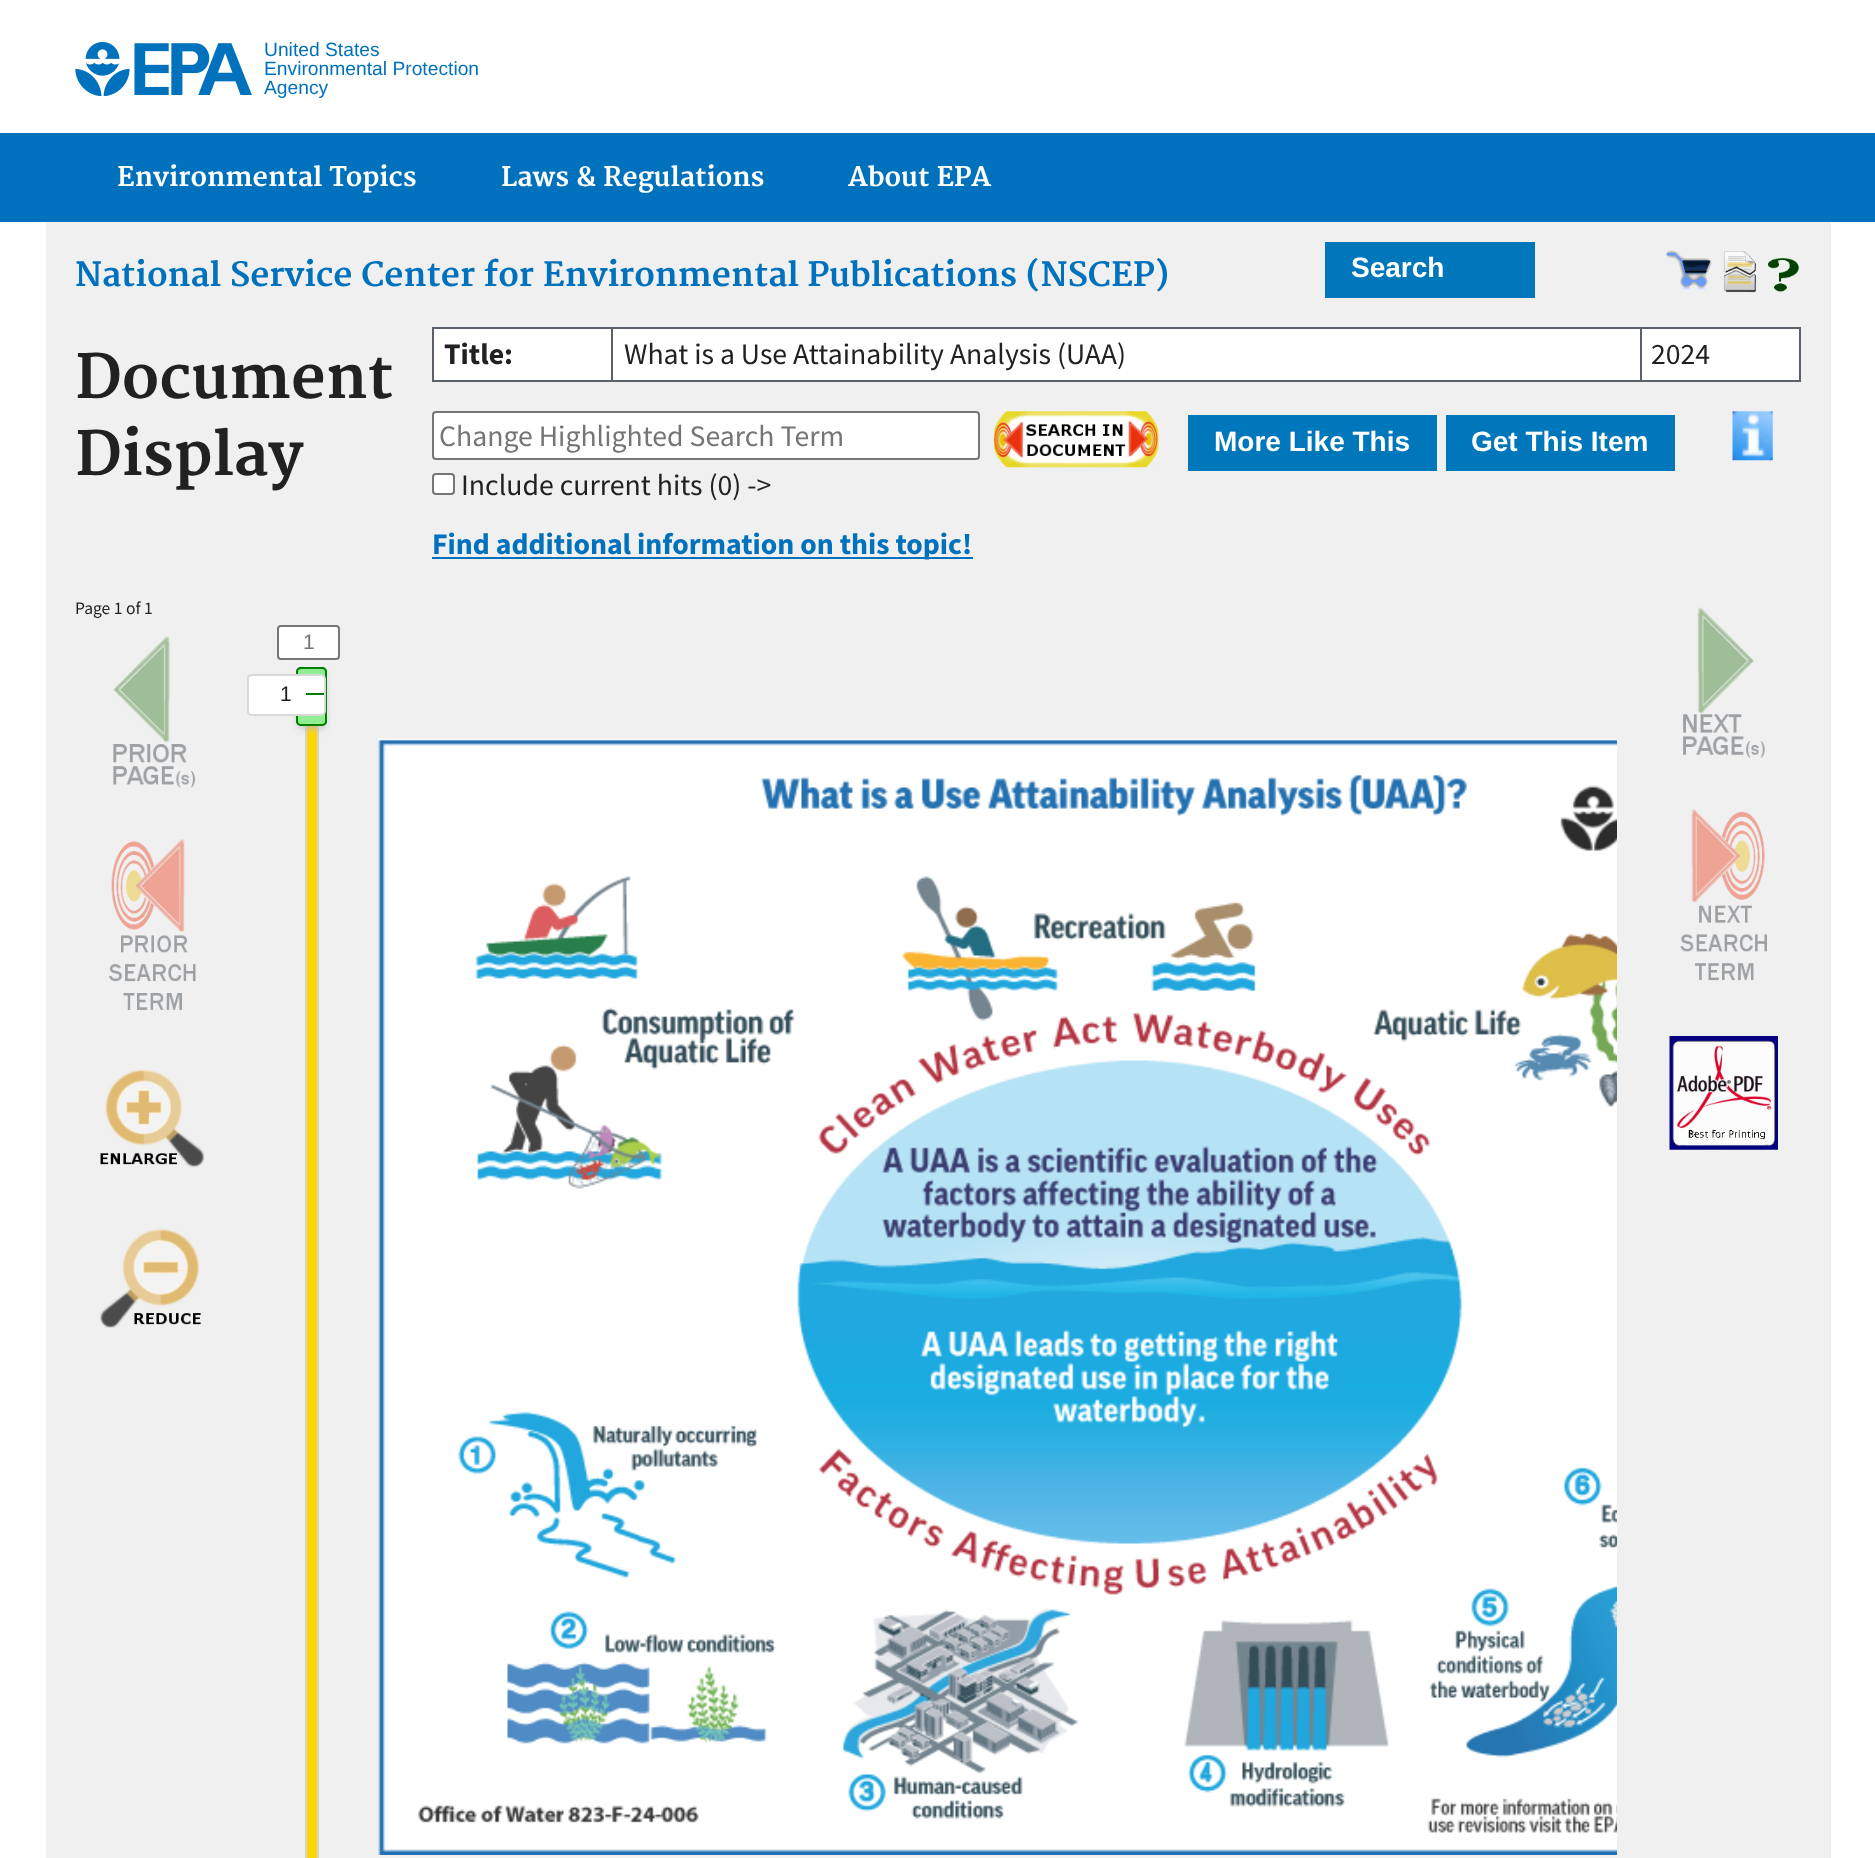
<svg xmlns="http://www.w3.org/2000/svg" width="1875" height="1858">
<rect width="100%" height="100%" fill="#fff"/>
<image x="75" y="42" width="177" height="54" href="media/1.png"/>
<text x="264" y="56" style="font-family:Liberation Sans;font-size:19.25px;fill:#0071bc">United States</text>
<text x="264" y="75" style="font-family:Liberation Sans;font-size:19.25px;fill:#0071bc">Environmental Protection</text>
<text x="264" y="94" style="font-family:Liberation Sans;font-size:19.25px;fill:#0071bc">Agency</text>
<rect y="133" width="1875" height="89" fill="#0071bc"/>
<text x="117" y="186" style="font-family:Merriweather;font-size:26.25px;font-weight:bold;fill:#fff">Environmental Topics</text>
<text x="501" y="186" style="font-family:Merriweather;font-size:26.25px;font-weight:bold;fill:#fff">Laws &amp; Regulations</text>
<text x="848" y="186" style="font-family:Merriweather;font-size:26.25px;font-weight:bold;fill:#fff">About EPA</text>
<rect x="46" y="222" width="1785" height="1636" fill="#f0f0f0"/>
<text x="75" y="286" style="font-family:Merriweather;font-size:32.75px;font-weight:bold;fill:#0071bc">National Service Center for Environmental Publications (NSCEP)</text>
<rect x="1325" y="242" width="210" height="56" fill="#07b"/>
<text x="1351" y="277" style="font-family:Liberation Sans;font-size:28px;font-weight:bold;fill:#fff">Search</text>
<image x="1666" y="250" width="46" height="42" href="media/2.png"/>
<image x="1723" y="251" width="33" height="42" href="media/3.png"/>
<image x="1768" y="258" width="31" height="34" href="media/4.png"/>
<text x="75" y="398" style="font-family:Merriweather;font-size:59.5px;font-weight:bold;fill:#212121">Document</text>
<text x="75" y="475" style="font-family:Merriweather;font-size:59.5px;font-weight:bold;fill:#212121">Display</text>
<rect x="434" y="329" width="1365" height="51" fill="#fff"/>
<rect x="1640" y="327" width="161" height="2" fill="#5b616b"/>
<rect x="1799" y="327" width="2" height="55" fill="#5b616b"/>
<rect x="1640" y="380" width="161" height="2" fill="#5b616b"/>
<rect x="1640" y="327" width="2" height="55" fill="#5b616b"/>
<rect x="611" y="327" width="1031" height="2" fill="#5b616b"/>
<rect x="611" y="380" width="1031" height="2" fill="#5b616b"/>
<rect x="611" y="327" width="2" height="55" fill="#5b616b"/>
<rect x="432" y="327" width="181" height="2" fill="#5b616b"/>
<rect x="432" y="380" width="181" height="2" fill="#5b616b"/>
<rect x="432" y="327" width="2" height="55" fill="#5b616b"/>
<text x="444" y="364" style="font-family:Source Sans Pro;font-size:29.75px;font-weight:bold;fill:#212121">Title:</text>
<text x="624" y="364" style="font-family:Source Sans Pro;font-size:29.75px;fill:#212121">What is a Use Attainability Analysis (UAA)</text>
<text x="1651" y="364" style="font-family:Source Sans Pro;font-size:29.75px;fill:#212121">2024</text>
<rect x="433" y="412" width="546" height="47" rx="3" fill="#fff" stroke="#767676" stroke-width="2"/>
<text x="439" y="446" style="font-family:Source Sans Pro;font-size:29.75px;fill:#757575">Change Highlighted Search Term</text>
<image x="994" y="411" width="165" height="57" href="media/5.png"/>
<rect x="1188" y="415" width="249" height="56" fill="#07b"/>
<text x="1214" y="451" style="font-family:Liberation Sans;font-size:28px;font-weight:bold;fill:#fff">More Like This</text>
<rect x="1446" y="415" width="229" height="56" fill="#07b"/>
<text x="1471" y="451" style="font-family:Liberation Sans;font-size:28px;font-weight:bold;fill:#fff">Get This Item</text>
<image x="1732" y="411" width="41" height="50" href="media/6.png"/>
<rect x="433" y="474" width="21" height="20" rx="3" fill="#fff" stroke="#767676" stroke-width="2"/>
<text x="461" y="495" style="font-family:Source Sans Pro;font-size:29.75px;fill:#212121">Include current hits (0) -&gt;</text>
<rect x="432" y="557" width="541" height="2" fill="#0071bc"/>
<text x="432" y="554" style="font-family:Source Sans Pro;font-size:29.75px;font-weight:bold;fill:#0071bc">Find additional information on this topic!</text>
<text x="75" y="614" style="font-family:Source Sans Pro;font-size:17.5px;fill:#212121">Page 1 of 1</text>
<image x="113" y="636" width="82" height="152" href="media/7.png"/>
<image x="109" y="839" width="87" height="171" href="media/8.png"/>
<image x="100" y="1069" width="105" height="99" href="media/9.png"/>
<image x="99" y="1228" width="102" height="100" href="media/10.png"/>
<rect x="278" y="626" width="61" height="33" rx="3" fill="#fff" stroke="#767676" stroke-width="2"/>
<text x="303" y="649" style="font-family:Liberation Sans;font-size:21px;fill:#757575">1</text>
<rect x="307" y="726" width="10" height="1132" fill="#ffd700"/>
<rect x="306" y="696" width="12" height="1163" fill="none" stroke="#d3d3d3" stroke-width="2"/>
<rect x="301" y="677" width="21" height="49" fill="#bbb" filter="blur(5px)"/>
<rect x="297" y="668" width="29" height="57" rx="4" fill="none" stroke="#008000" stroke-width="2"/>
<rect x="248" y="675" width="77" height="40" rx="4" fill="none" stroke="#d9d9d9" stroke-width="2"/>
<rect x="301" y="677" width="21" height="49" fill="#bbb" filter="blur(5px)"/>
<rect x="297" y="668" width="29" height="57" rx="4" fill="#90ee90" stroke="#008000" stroke-width="2"/>
<rect x="248" y="675" width="77" height="40" rx="4" fill="#fff" stroke="#d9d9d9" stroke-width="2"/>
<text x="280" y="701" style="font-family:Liberation Sans;font-size:21px;fill:#212121">1</text>
<rect x="306" y="693" width="18" height="2" fill="#008000"/>
<image x="1683" y="607" width="82" height="151" href="media/11.png"/>
<image x="1680" y="809" width="87" height="172" href="media/12.png"/>
<image x="1669" y="1036" width="109" height="114" href="media/13.png"/>
<image x="378" y="738" width="1239" height="1117" href="media/14.png"/>
</svg>
